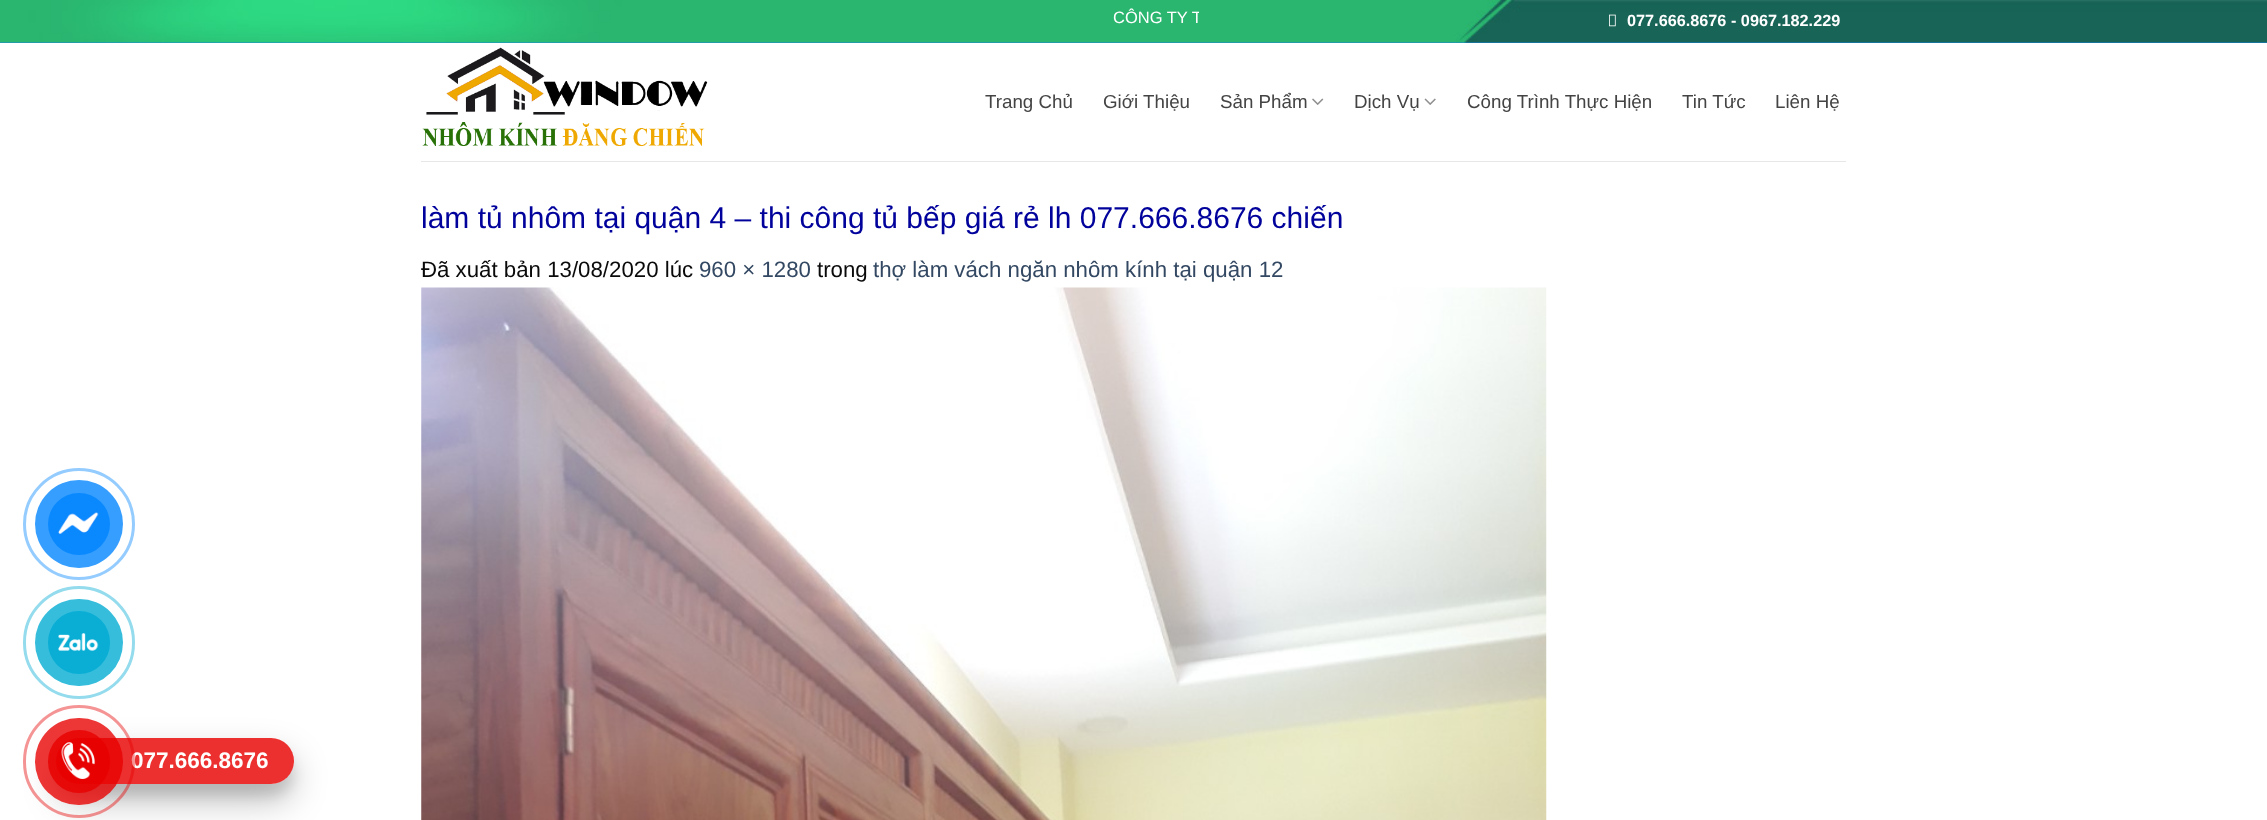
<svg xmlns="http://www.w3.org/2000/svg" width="2267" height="820">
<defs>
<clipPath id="clip1"><rect x="421" y="4" width="778" height="26"/></clipPath>
<clipPath id="clip2"><path d="M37 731h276v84h-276zm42 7h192c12.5 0 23 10.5 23 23c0 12.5-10.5 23-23 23h-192c-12.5 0-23-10.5-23-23c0-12.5 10.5-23 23-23z" clip-rule="evenodd"/></clipPath>
<clipPath id="clip3"><path d="M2 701h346v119h-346zm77 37h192c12.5 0 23 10.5 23 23c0 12.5-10.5 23-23 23h-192c-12.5 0-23-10.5-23-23c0-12.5 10.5-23 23-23z" clip-rule="evenodd"/></clipPath>
</defs>
<rect width="100%" height="100%" fill="#fff"/>
<rect y="42" width="2267" height="1" fill="#1a85e0"/>
<image x="0" y="0" width="2267" height="43" href="media/1.png"/>
<g clip-path="url(#clip1)">
<text x="1113" y="23" style="font-family:Liberation Sans;font-size:16.5px;fill:#fff">CÔNG TY T</text>
</g>
<image x="1609" y="14" width="7" height="13" href="media/2.png"/>
<text x="1627" y="26" style="font-family:Liberation Sans;font-size:16.25px;font-weight:bold;fill:#fff">077.666.8676 - 0967.182.229</text>
<image x="422" y="47" width="286" height="99" href="media/3.png"/>
<text x="985" y="108" style="font-family:Liberation Sans;font-size:18.75px;fill:#444">Trang Chủ</text>
<text x="1103" y="108" style="font-family:Liberation Sans;font-size:18.75px;fill:#444">Giới Thiệu</text>
<text x="1220" y="108" style="font-family:Liberation Sans;font-size:18.75px;fill:#444">Sản Phẩm</text>
<image x="1312" y="98" width="12" height="7" href="media/4.png"/>
<text x="1354" y="108" style="font-family:Liberation Sans;font-size:18.75px;fill:#444">Dịch Vụ</text>
<image x="1424" y="98" width="12" height="7" href="media/5.png"/>
<text x="1467" y="108" style="font-family:Liberation Sans;font-size:18.75px;fill:#444">Công Trình Thực Hiện</text>
<text x="1682" y="108" style="font-family:Liberation Sans;font-size:18.75px;fill:#444">Tin Tức</text>
<text x="1775" y="108" style="font-family:Liberation Sans;font-size:18.75px;fill:#444">Liên Hệ</text>
<rect x="421" y="161" width="1425" height="1" fill="#e7e7e7"/>
<text x="421" y="228" style="font-family:Liberation Sans;font-size:30px;fill:#00029b">làm tủ nhôm tại quận 4 – thi công tủ bếp giá rẻ lh 077.666.8676 chiến</text>
<text x="421" y="277" style="font-family:Liberation Sans;font-size:22.25px;fill:#0a0a0a">Đã xuất bản 13/08/2020 lúc</text>
<text x="699" y="277" style="font-family:Liberation Sans;font-size:22.25px;fill:#334862">960 × 1280</text>
<text x="817" y="277" style="font-family:Liberation Sans;font-size:22.25px;fill:#0a0a0a">trong</text>
<text x="873" y="277" style="font-family:Liberation Sans;font-size:22.25px;fill:#334862">thợ làm vách ngăn nhôm kính tại quận 12</text>
<image x="421" y="287" width="1126" height="533" href="media/6.png"/>
<circle cx="79" cy="524" r="54.5" fill="none" stroke="#94ccff" stroke-width="3"/>
<circle cx="79" cy="524" r="44" fill="#369eff"/>
<circle cx="79" cy="524" r="31" fill="#0a89ff"/>
<image x="58" y="512" width="41" height="22" href="media/7.png"/>
<rect x="24.5" y="587.5" width="109" height="110" rx="54.5" fill="none" stroke="#94dced" stroke-width="3"/>
<rect x="35" y="599" width="88" height="87" rx="43.5" fill="#36bddc"/>
<rect x="48" y="611" width="62" height="63" rx="31" fill="#0aaed5"/>
<image x="58" y="633" width="41" height="18" href="media/8.png"/>
<g clip-path="url(#clip2)">
<rect x="56" y="750" width="238" height="46" rx="23" fill="#0000001a" filter="blur(6px)"/>
</g>
<g clip-path="url(#clip3)">
<rect x="56" y="755" width="238" height="46" rx="23" fill="#00000040" filter="blur(17.5px)"/>
</g>
<rect x="56" y="738" width="238" height="46" rx="23" fill="#e80000cf"/>
<text x="131" y="768" style="font-family:Liberation Sans;font-size:22.5px;font-weight:bold;fill:#fff">077.666.8676</text>
<rect x="24.5" y="706.5" width="109" height="110" rx="54.5" fill="none" stroke="#e800006b" stroke-width="3"/>
<rect x="35" y="718" width="88" height="87" rx="43.5" fill="#e80000c9"/>
<rect x="48" y="730" width="62" height="63" rx="31" fill="#e80000cf"/>
<image x="61" y="742" width="34" height="37" href="media/9.png"/>
</svg>
